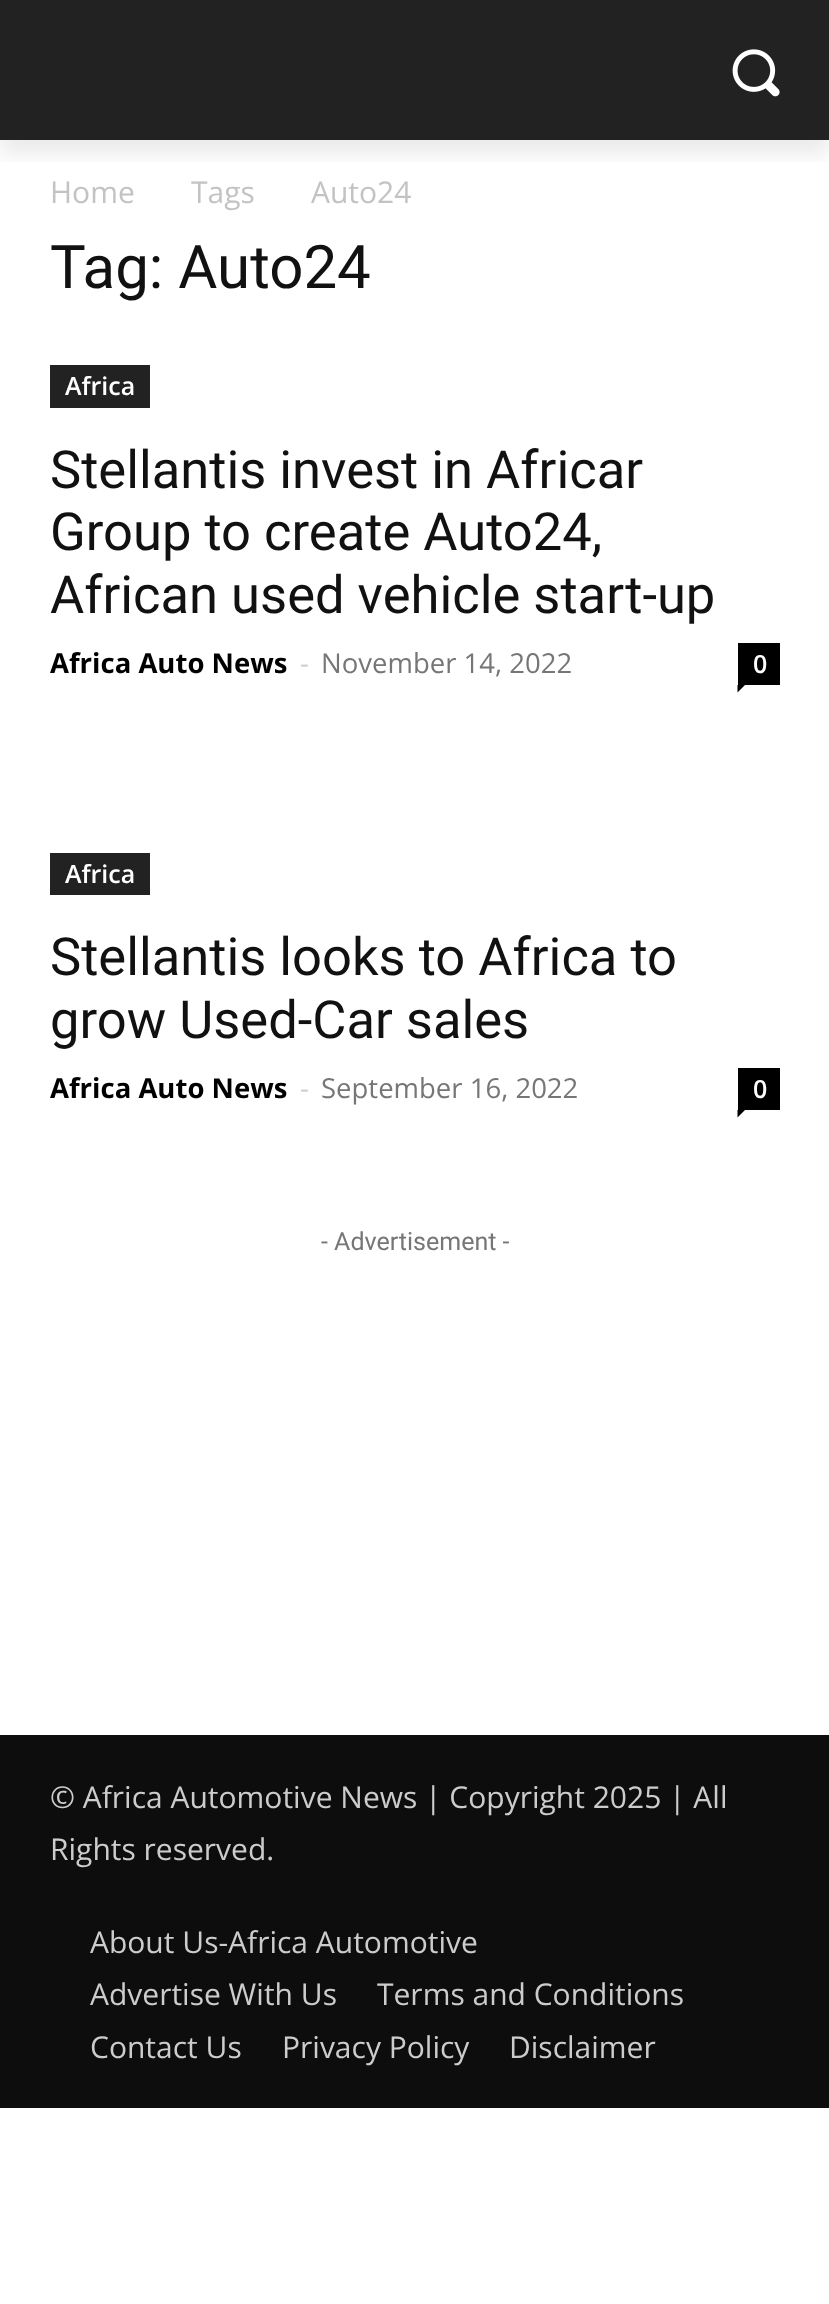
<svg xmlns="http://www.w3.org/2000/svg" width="829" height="2304">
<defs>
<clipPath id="clip1"><rect x="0" y="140" width="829" height="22"/></clipPath>
</defs>
<rect width="100%" height="100%" fill="#fff"/>
<rect width="829" height="140" fill="#222"/>
<image x="732" y="49" width="48" height="48" href="media/1.png"/>
<g clip-path="url(#clip1)">
<rect y="15" width="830" height="140" fill="#00000014" filter="blur(10px)"/>
</g>
<text x="50" y="203" style="font-family:Open Sans;font-size:30px;fill:#c3c3c3">Home</text>
<text x="191" y="203" style="font-family:Open Sans;font-size:30px;fill:#c3c3c3">Tags</text>
<text x="311" y="203" style="font-family:Open Sans;font-size:30px;fill:#c3c3c3">Auto24</text>
<text x="50" y="288" style="font-family:Roboto;font-size:60px;fill:#111">Tag: Auto24</text>
<rect x="50" y="365" width="100" height="43" fill="#222"/>
<text x="65" y="395" style="font-family:Open Sans;font-size:25px;font-weight:600;fill:#fff">Africa</text>
<text x="50" y="488" style="font-family:Roboto;font-size:52.5px;fill:#111">Stellantis invest in Africar</text>
<text x="50" y="550" style="font-family:Roboto;font-size:52.5px;fill:#111">Group to create Auto24,</text>
<text x="50" y="613" style="font-family:Roboto;font-size:52.5px;fill:#111">African used vehicle start-up</text>
<text x="50" y="673" style="font-family:Open Sans;font-size:27.5px;font-weight:bold;fill:#000">Africa Auto News</text>
<text x="300" y="673" style="font-family:Open Sans;font-size:27.5px;fill:#ccc">-</text>
<text x="321" y="673" style="font-family:Open Sans;font-size:27.5px;fill:#767676">November 14, 2022</text>
<rect x="738" y="643" width="42" height="42" fill="#000"/>
<text x="753" y="673" style="font-family:Open Sans;font-size:25px;font-weight:600;fill:#fff">0</text>
<path d="M737.5 685h7.5l-7.5 7.5z" fill="#000"/>
<rect x="50" y="853" width="100" height="42" fill="#222"/>
<text x="65" y="883" style="font-family:Open Sans;font-size:25px;font-weight:600;fill:#fff">Africa</text>
<text x="50" y="975" style="font-family:Roboto;font-size:52.5px;fill:#111">Stellantis looks to Africa to</text>
<text x="50" y="1038" style="font-family:Roboto;font-size:52.5px;fill:#111">grow Used-Car sales</text>
<text x="50" y="1098" style="font-family:Open Sans;font-size:27.5px;font-weight:bold;fill:#000">Africa Auto News</text>
<text x="300" y="1098" style="font-family:Open Sans;font-size:27.5px;fill:#ccc">-</text>
<text x="321" y="1098" style="font-family:Open Sans;font-size:27.5px;fill:#767676">September 16, 2022</text>
<rect x="738" y="1068" width="42" height="42" fill="#000"/>
<text x="753" y="1098" style="font-family:Open Sans;font-size:25px;font-weight:600;fill:#fff">0</text>
<path d="M737.5 1110h7.5l-7.5 7.5z" fill="#000"/>
<text x="321" y="1250" style="font-family:Roboto;font-size:25px;fill:#767676">- Advertisement -</text>
<rect y="1735" width="829" height="373" fill="#0d0d0d"/>
<text x="50" y="1808" style="font-family:Open Sans;font-size:30px;fill:#ccc">© Africa Automotive News | Copyright 2025 | All</text>
<text x="50" y="1860" style="font-family:Open Sans;font-size:30px;fill:#ccc">Rights reserved.</text>
<text x="90" y="1953" style="font-family:Open Sans;font-size:30px;fill:#ccc">About Us-Africa Automotive</text>
<text x="90" y="2005" style="font-family:Open Sans;font-size:30px;fill:#ccc">Advertise With Us</text>
<text x="377" y="2005" style="font-family:Open Sans;font-size:30px;fill:#ccc">Terms and Conditions</text>
<text x="90" y="2058" style="font-family:Open Sans;font-size:30px;fill:#ccc">Contact Us</text>
<text x="282" y="2058" style="font-family:Open Sans;font-size:30px;fill:#ccc">Privacy Policy</text>
<text x="509" y="2058" style="font-family:Open Sans;font-size:30px;fill:#ccc">Disclaimer</text>
</svg>
